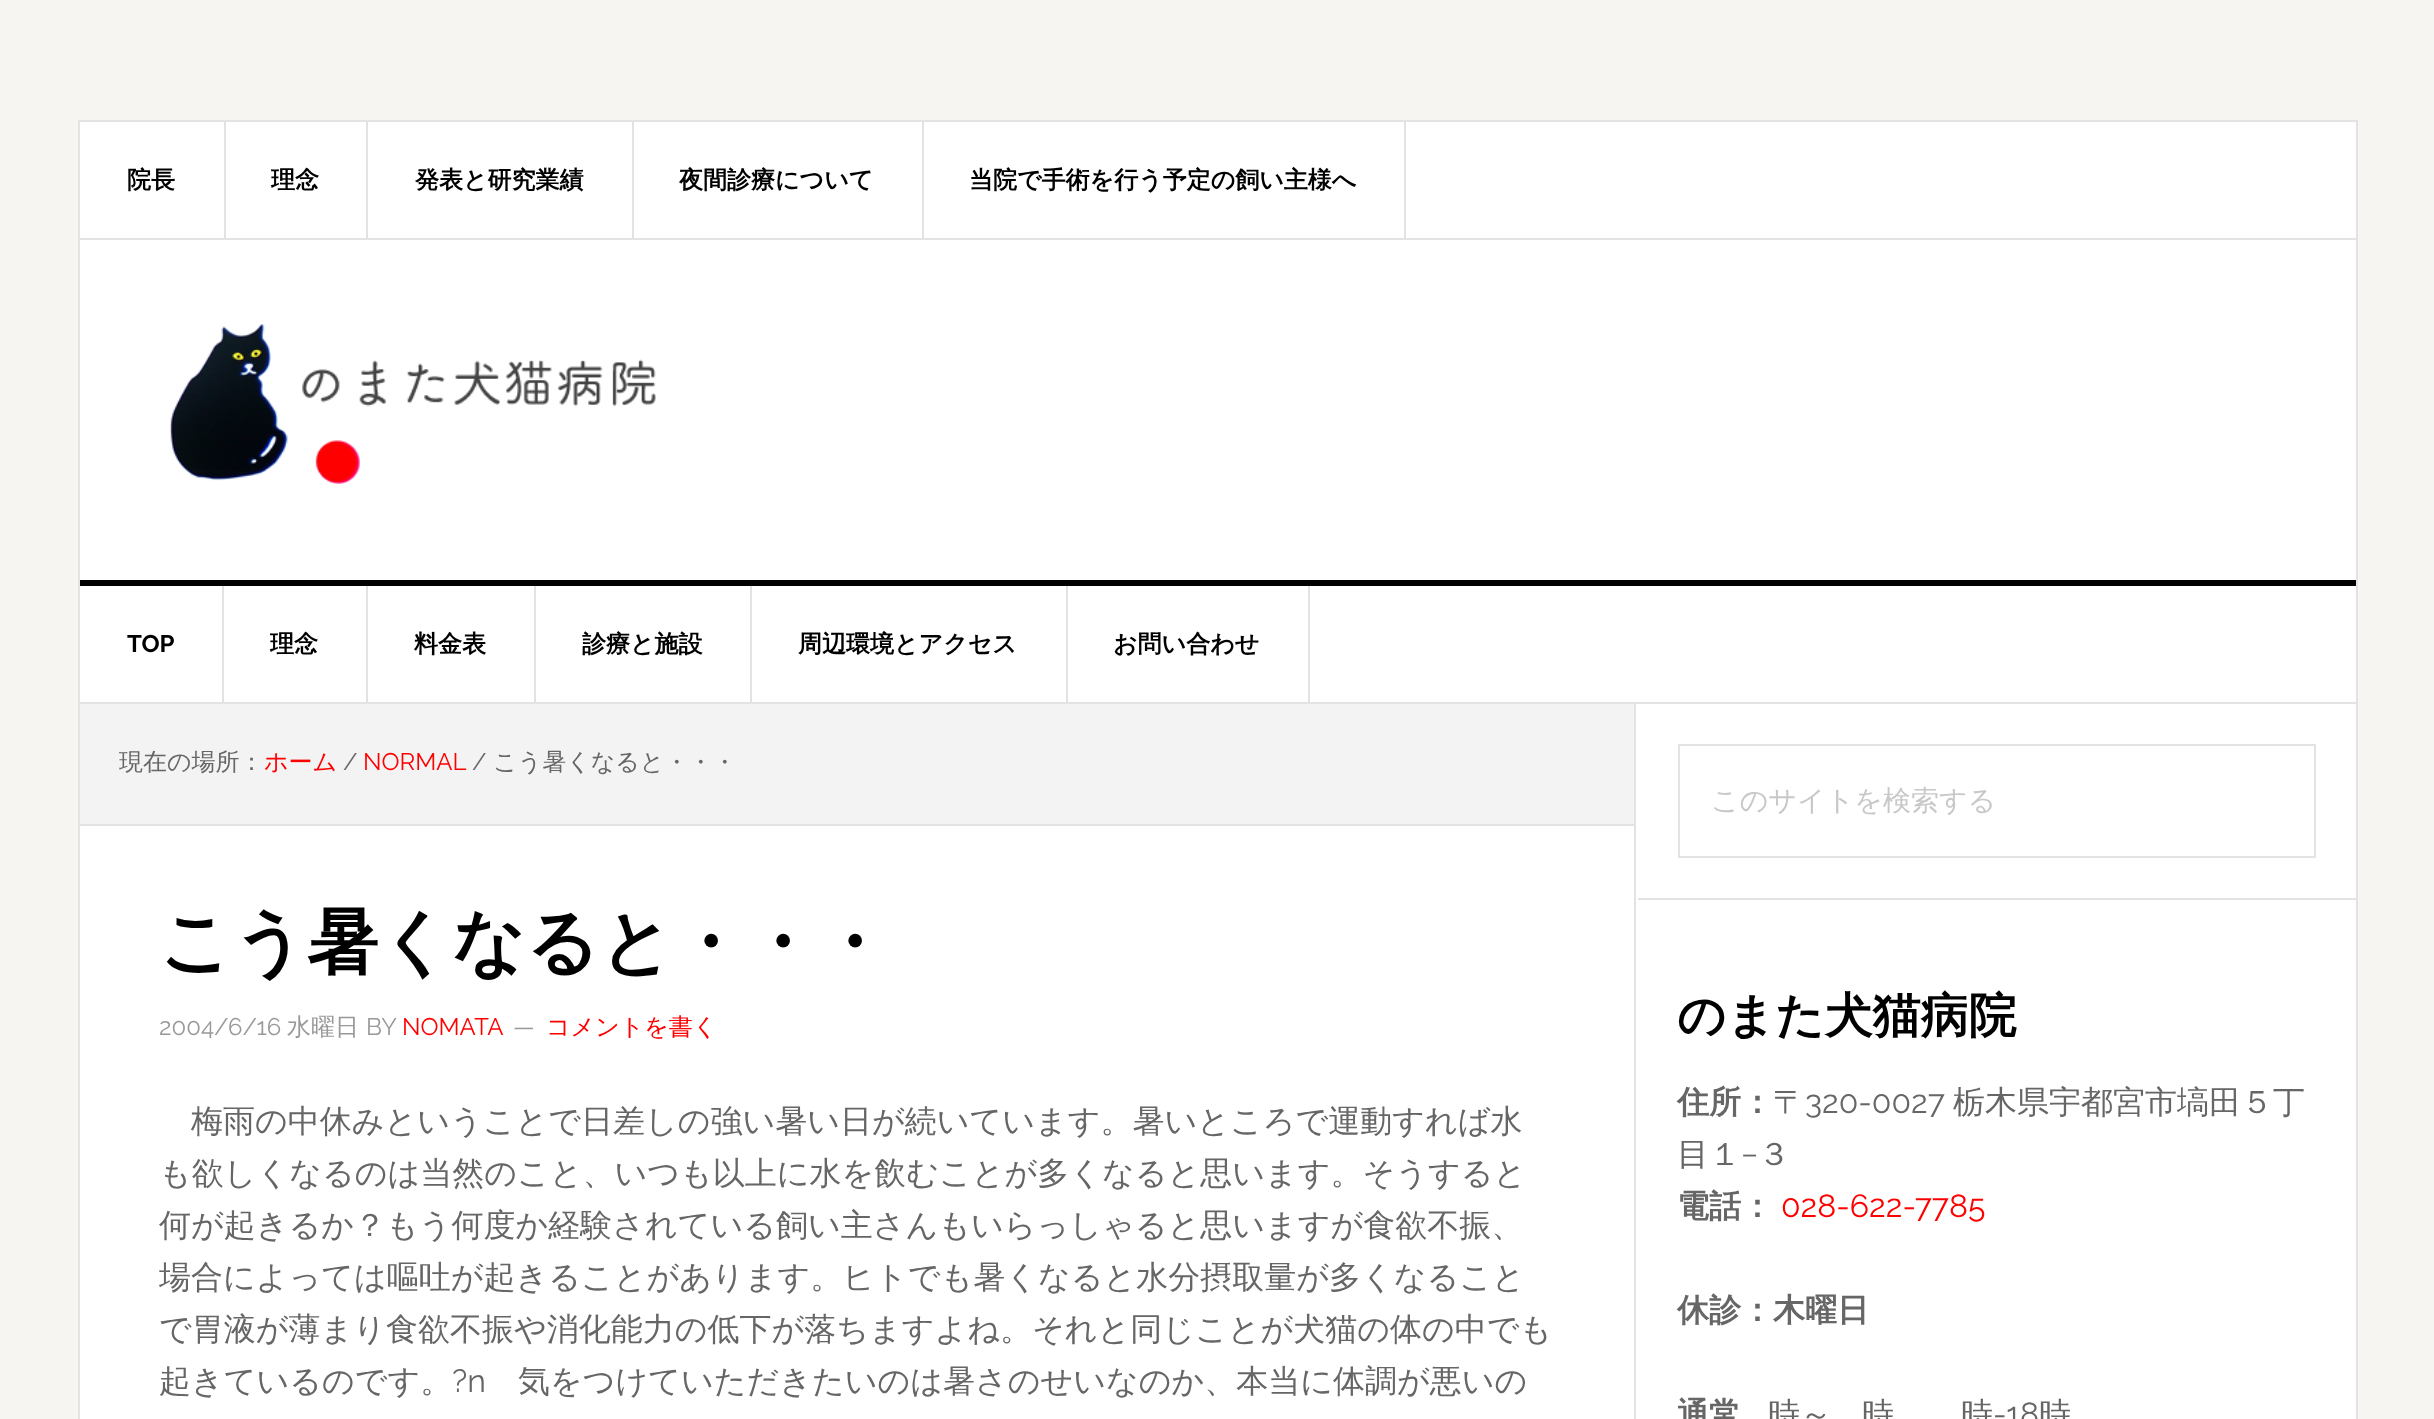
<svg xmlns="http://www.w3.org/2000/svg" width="2434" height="1419">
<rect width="100%" height="100%" fill="#f6f5f2"/>
<rect x="79" y="121" width="2278" height="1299" fill="#fff" stroke="#e3e3e3" stroke-width="2"/>
<rect x="80" y="238" width="2276" height="2" fill="#e3e3e3"/>
<rect x="224" y="122" width="2" height="116" fill="#e3e3e3"/>
<text x="127" y="188" style="font-family:WenQuanYi Zen Hei;font-size:24px;font-weight:bold;fill:#000">院長</text>
<rect x="366" y="122" width="2" height="116" fill="#e3e3e3"/>
<text x="271" y="188" style="font-family:WenQuanYi Zen Hei;font-size:24px;font-weight:bold;fill:#000">理念</text>
<rect x="632" y="122" width="2" height="116" fill="#e3e3e3"/>
<text x="415" y="188" style="font-family:WenQuanYi Zen Hei;font-size:24px;font-weight:bold;fill:#000">発表と研究業績</text>
<rect x="922" y="122" width="2" height="116" fill="#e3e3e3"/>
<text x="679" y="188" style="font-family:WenQuanYi Zen Hei;font-size:24px;font-weight:bold;fill:#000">夜間診療について</text>
<rect x="1404" y="122" width="2" height="116" fill="#e3e3e3"/>
<text x="969" y="188" style="font-family:WenQuanYi Zen Hei;font-size:24px;font-weight:bold;fill:#000">当院で手術を行う予定の飼い主様へ</text>
<rect x="80" y="580" width="2276" height="6" fill="#000"/>
<image x="169" y="324" width="487" height="160" href="media/1.png"/>
<rect x="80" y="702" width="2276" height="2" fill="#e3e3e3"/>
<rect x="222" y="586" width="2" height="116" fill="#e3e3e3"/>
<text x="127" y="652" style="font-family:Raleway;font-size:24px;font-weight:bold;fill:#000">TOP</text>
<rect x="366" y="586" width="2" height="116" fill="#e3e3e3"/>
<text x="270" y="652" style="font-family:WenQuanYi Zen Hei;font-size:24px;font-weight:bold;fill:#000">理念</text>
<rect x="534" y="586" width="2" height="116" fill="#e3e3e3"/>
<text x="414" y="652" style="font-family:WenQuanYi Zen Hei;font-size:24px;font-weight:bold;fill:#000">料金表</text>
<rect x="750" y="586" width="2" height="116" fill="#e3e3e3"/>
<text x="582" y="652" style="font-family:WenQuanYi Zen Hei;font-size:24px;font-weight:bold;fill:#000">診療と施設</text>
<rect x="1066" y="586" width="2" height="116" fill="#e3e3e3"/>
<text x="798" y="652" style="font-family:WenQuanYi Zen Hei;font-size:24px;font-weight:bold;fill:#000">周辺環境とアクセス</text>
<rect x="1308" y="586" width="2" height="116" fill="#e3e3e3"/>
<text x="1113" y="652" style="font-family:WenQuanYi Zen Hei;font-size:24px;font-weight:bold;fill:#000">お問い合わせ</text>
<rect x="1634" y="704" width="2" height="715" fill="#e3e3e3"/>
<rect x="80" y="704" width="1554" height="120" fill="#f3f3f3"/>
<rect x="80" y="824" width="1554" height="2" fill="#e3e3e3"/>
<text x="119" y="770" style="font-family:WenQuanYi Zen Hei;font-size:24px;font-weight:500;fill:#666">現在の場所：</text>
<text x="264" y="770" style="font-family:WenQuanYi Zen Hei;font-size:24px;font-weight:500;fill:#f00">ホーム</text>
<text x="343" y="770" style="font-family:Raleway;font-size:24px;fill:#666">/</text>
<text x="363" y="770" style="font-family:Raleway;font-size:24px;fill:#f00">NORMAL</text>
<text x="472" y="770" style="font-family:Raleway;font-size:24px;fill:#666">/</text>
<text x="493" y="770" style="font-family:WenQuanYi Zen Hei;font-size:24px;font-weight:500;fill:#666">こう暑くなると・・・</text>
<text x="159" y="967" style="font-family:WenQuanYi Zen Hei;font-size:72px;font-weight:bold;fill:#000">こう暑くなると・・・</text>
<text x="159" y="1035" style="font-family:Raleway;font-size:24px;fill:#999">2004/6/16</text>
<text x="287" y="1035" style="font-family:WenQuanYi Zen Hei;font-size:24px;font-weight:500;fill:#999">水曜日</text>
<text x="366" y="1035" style="font-family:Raleway;font-size:24px;fill:#999">BY</text>
<text x="402" y="1035" style="font-family:Raleway;font-size:24px;fill:#f00">NOMATA</text>
<text x="513" y="1035" style="font-family:Raleway;font-size:24px;fill:#999">—</text>
<text x="546" y="1035" style="font-family:WenQuanYi Zen Hei;font-size:24px;font-weight:500;fill:#f00">コメントを書く</text>
<text x="191" y="1132" style="font-family:WenQuanYi Zen Hei;font-size:32px;font-weight:500;fill:#666">梅雨の中休みということで日差しの強い暑い日が続いています。暑いところで運動すれば水</text>
<text x="159" y="1184" style="font-family:WenQuanYi Zen Hei;font-size:32px;font-weight:500;fill:#666">も欲しくなるのは当然のこと、いつも以上に水を飲むことが多くなると思います。そうすると</text>
<text x="159" y="1236" style="font-family:WenQuanYi Zen Hei;font-size:32px;font-weight:500;fill:#666">何が起きるか？もう何度か経験されている飼い主さんもいらっしゃると思いますが食欲不振、</text>
<text x="159" y="1288" style="font-family:WenQuanYi Zen Hei;font-size:32px;font-weight:500;fill:#666">場合によっては嘔吐が起きることがあります。ヒトでも暑くなると水分摂取量が多くなること</text>
<text x="159" y="1340" style="font-family:WenQuanYi Zen Hei;font-size:32px;font-weight:500;fill:#666">で胃液が薄まり食欲不振や消化能力の低下が落ちますよね。それと同じことが犬猫の体の中でも</text>
<text x="159" y="1392" style="font-family:WenQuanYi Zen Hei;font-size:32px;font-weight:500;fill:#666">起きているのです。</text>
<text x="452" y="1392" style="font-family:Raleway;font-size:32px;fill:#666">?n</text>
<text x="518" y="1392" style="font-family:WenQuanYi Zen Hei;font-size:32px;font-weight:500;fill:#666">気をつけていただきたいのは暑さのせいなのか、本当に体調が悪いの</text>
<rect x="1638" y="898" width="718" height="2" fill="#e3e3e3"/>
<rect x="1679" y="745" width="636" height="112" fill="none" stroke="#e3e3e3" stroke-width="2"/>
<text x="1711" y="810" style="font-family:WenQuanYi Zen Hei;font-size:28px;font-weight:500;fill:#c8c8c8">このサイトを検索する</text>
<text x="1677" y="1032" style="font-family:WenQuanYi Zen Hei;font-size:48px;font-weight:bold;fill:#000">のまた犬猫病院</text>
<text x="1677" y="1113" style="font-family:WenQuanYi Zen Hei;font-size:32px;font-weight:bold;fill:#666">住所：</text>
<text x="1773" y="1113" style="font-family:WenQuanYi Zen Hei;font-size:32px;font-weight:500;fill:#666">〒</text>
<text x="1805" y="1113" style="font-family:Raleway;font-size:32px;fill:#666">320-0027</text>
<text x="1953" y="1113" style="font-family:WenQuanYi Zen Hei;font-size:32px;font-weight:500;fill:#666">栃木県宇都宮市塙田５丁</text>
<text x="1677" y="1165" style="font-family:WenQuanYi Zen Hei;font-size:32px;font-weight:500;fill:#666">目１</text>
<text x="1741" y="1165" style="font-family:Raleway;font-size:32px;fill:#666">−</text>
<text x="1758" y="1165" style="font-family:WenQuanYi Zen Hei;font-size:32px;font-weight:500;fill:#666">３</text>
<text x="1677" y="1217" style="font-family:WenQuanYi Zen Hei;font-size:32px;font-weight:bold;fill:#666">電話：</text>
<text x="1781" y="1217" style="font-family:Raleway;font-size:32px;fill:#f00">028-622-7785</text>
<text x="1677" y="1321" style="font-family:WenQuanYi Zen Hei;font-size:32px;font-weight:bold;fill:#666">休診：木曜日</text>
<text x="1677" y="1425" style="font-family:WenQuanYi Zen Hei;font-size:32px;font-weight:bold;fill:#666">通常</text>
<text x="1768" y="1425" style="font-family:WenQuanYi Zen Hei;font-size:32px;font-weight:500;fill:#666">時～</text>
<text x="1862" y="1425" style="font-family:WenQuanYi Zen Hei;font-size:32px;font-weight:500;fill:#666">時</text>
<text x="1961" y="1425" style="font-family:WenQuanYi Zen Hei;font-size:32px;font-weight:500;fill:#666">時</text>
<text x="1993" y="1425" style="font-family:Raleway;font-size:32px;fill:#666">-18</text>
<text x="2039" y="1425" style="font-family:WenQuanYi Zen Hei;font-size:32px;font-weight:500;fill:#666">時</text>
</svg>
